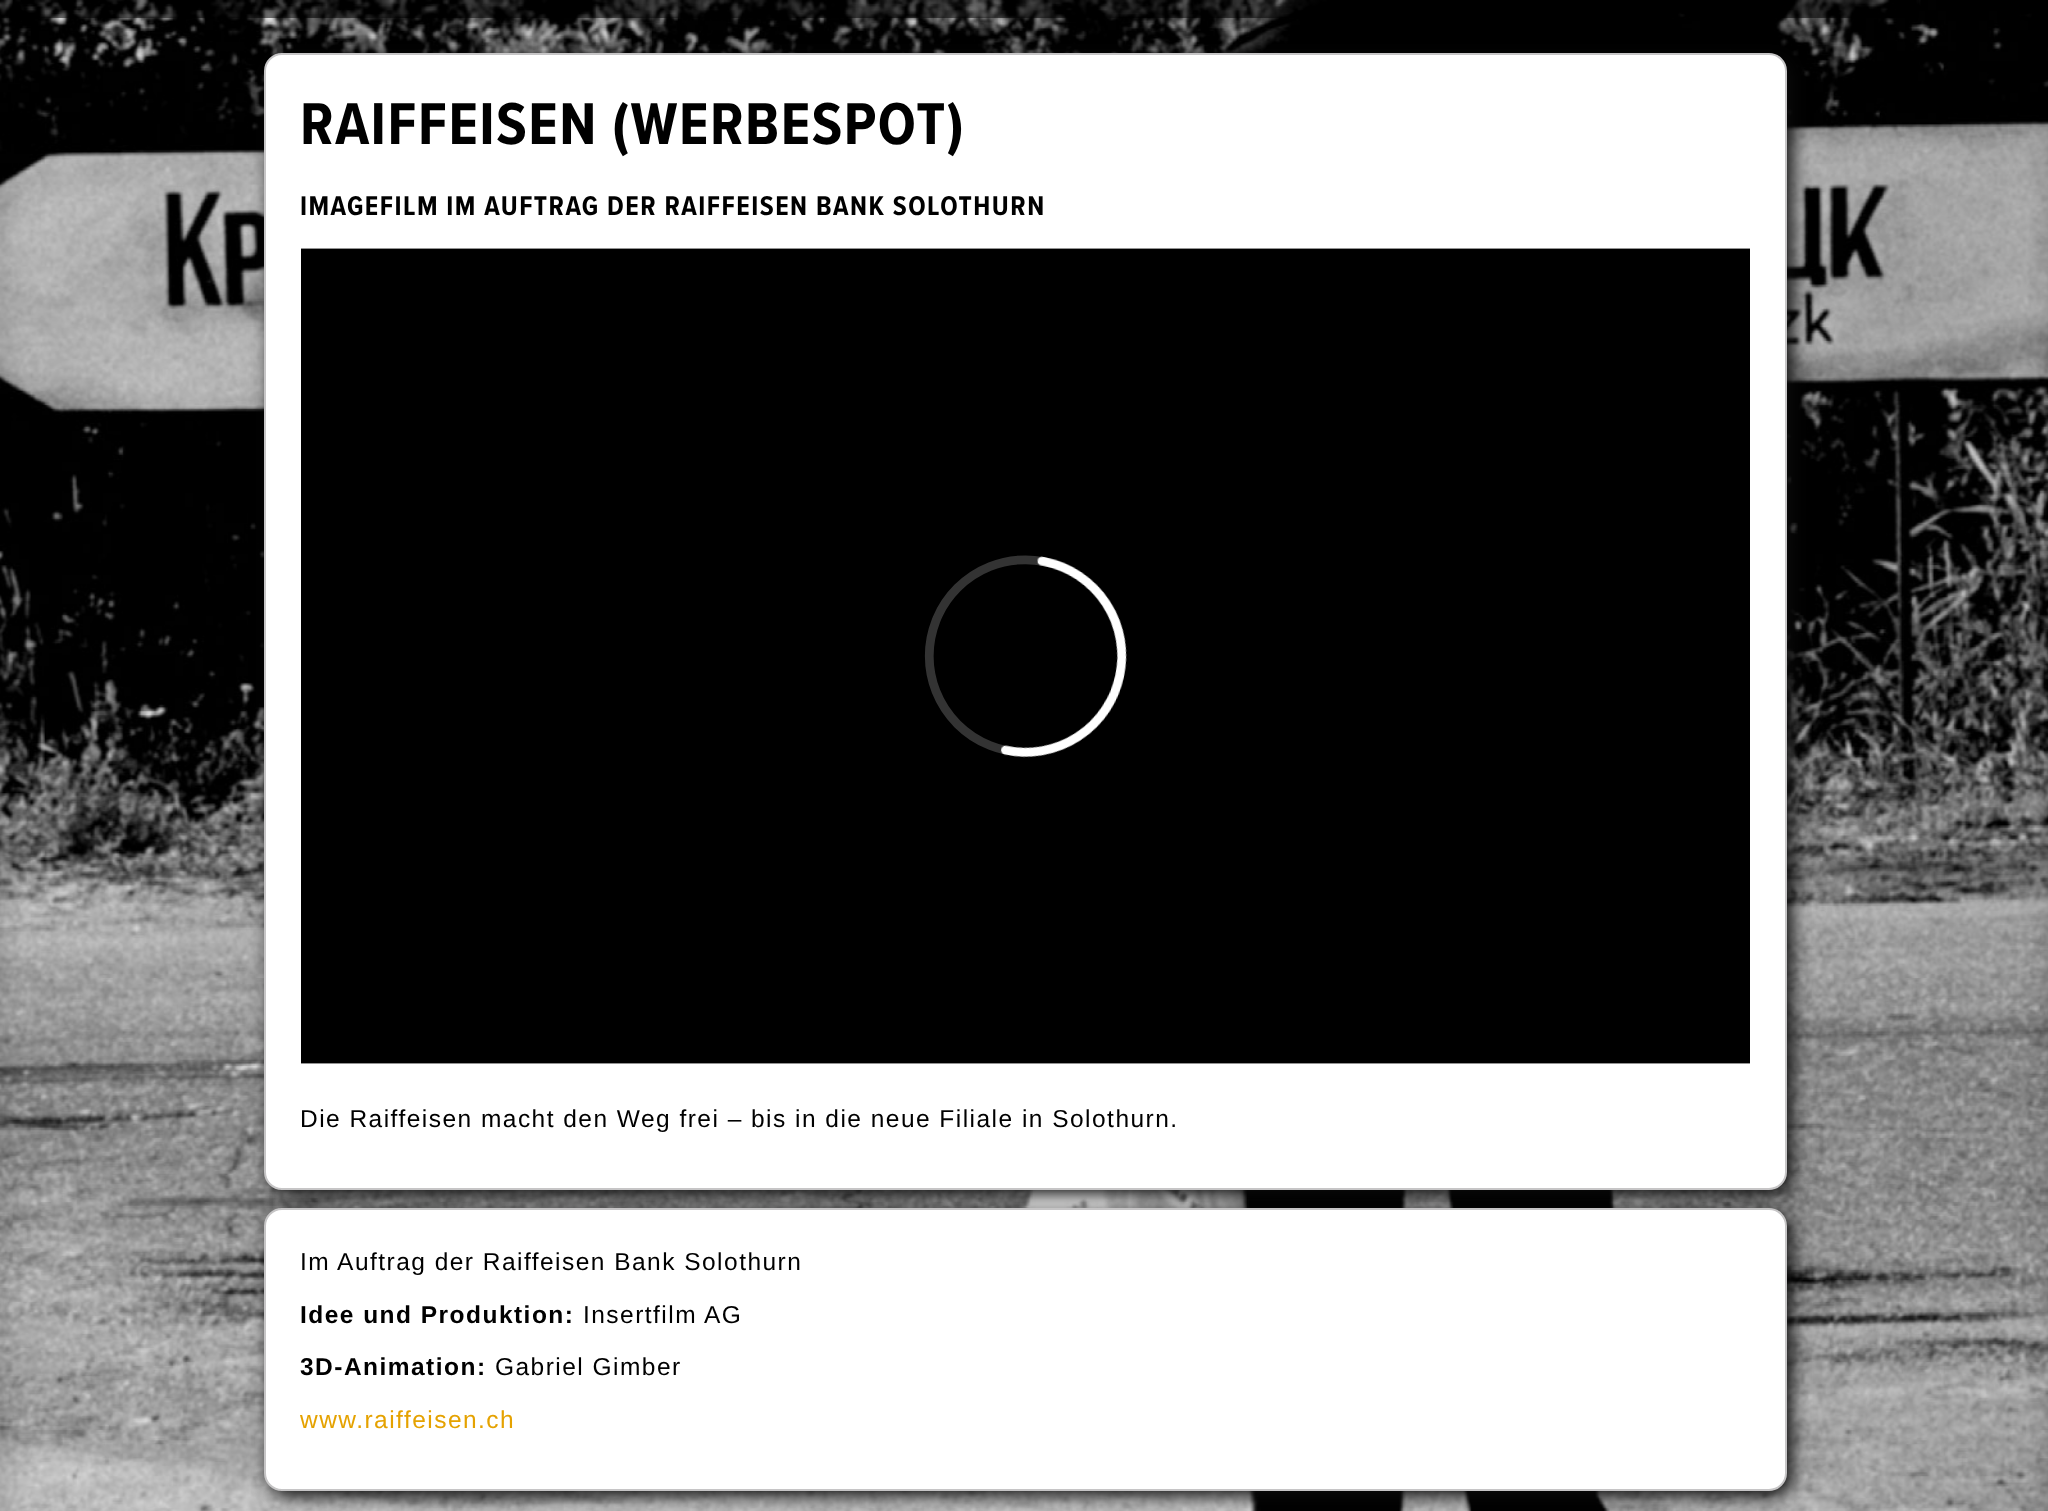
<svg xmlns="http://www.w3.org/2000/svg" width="2048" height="1511">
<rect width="100%" height="100%" fill="#fff"/>
<image x="0" y="0" width="2048" height="1511" href="media/1.png"/>
<rect width="1919" height="18" fill="#00000087"/>
<rect x="270" y="58" width="1522" height="1137" rx="18" fill="#0a0a0a" filter="blur(9px)"/>
<rect x="265" y="54" width="1521" height="1135" rx="17" fill="#fff" stroke="#c6c5c6" stroke-width="2"/>
<text x="300" y="144" style="font-family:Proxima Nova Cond;font-size:61.25px;font-weight:bold;letter-spacing:1.47px;fill:#000">RAIFFEISEN (WERBESPOT)</text>
<text x="300" y="215" style="font-family:Proxima Nova Cond;font-size:28px;font-weight:bold;letter-spacing:1.47px;fill:#000">IMAGEFILM IM AUFTRAG DER RAIFFEISEN BANK SOLOTHURN</text>
<image x="301" y="248" width="1449" height="816" href="media/2.png"/>
<text x="300" y="1127" style="font-family:Liberation Sans;font-size:24.5px;letter-spacing:1.47px;fill:#000">Die Raiffeisen macht den Weg frei – bis in die neue Filiale in Solothurn.</text>
<rect x="270" y="1213" width="1522" height="283" rx="18" fill="#0a0a0a" filter="blur(9px)"/>
<rect x="265" y="1209" width="1521" height="281" rx="17" fill="#fff" stroke="#c6c5c6" stroke-width="2"/>
<text x="300" y="1270" style="font-family:Liberation Sans;font-size:24.5px;letter-spacing:1.47px;fill:#000">Im Auftrag der Raiffeisen Bank Solothurn</text>
<text x="300" y="1323" style="font-family:Liberation Sans;font-size:24.5px;font-weight:bold;letter-spacing:1.47px;fill:#000">Idee und Produktion:</text>
<text x="583" y="1323" style="font-family:Liberation Sans;font-size:24.5px;letter-spacing:1.47px;fill:#000">Insertfilm AG</text>
<text x="300" y="1375" style="font-family:Liberation Sans;font-size:24.5px;font-weight:bold;letter-spacing:1.47px;fill:#000">3D-Animation:</text>
<text x="495" y="1375" style="font-family:Liberation Sans;font-size:24.5px;letter-spacing:1.47px;fill:#000">Gabriel Gimber</text>
<text x="300" y="1428" style="font-family:Liberation Sans;font-size:24.5px;letter-spacing:1.47px;fill:#e5a200">www.raiffeisen.ch</text>
</svg>
